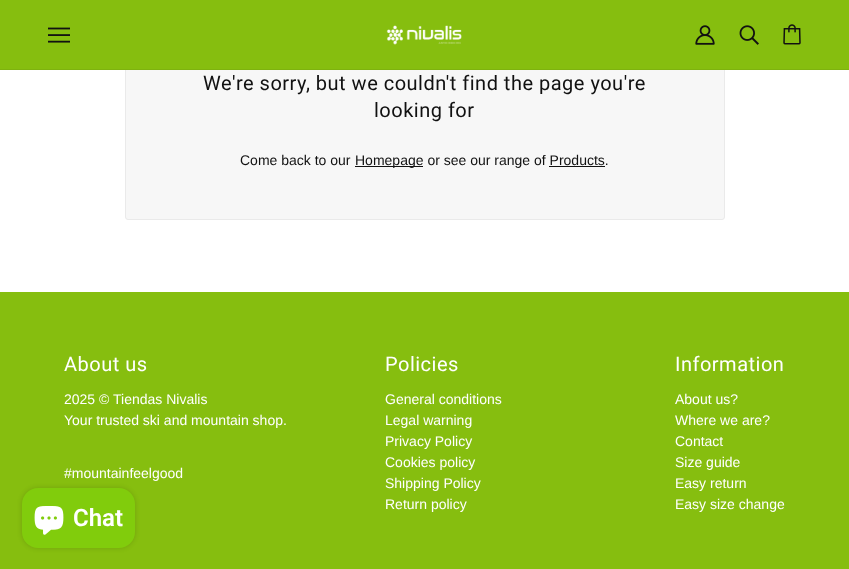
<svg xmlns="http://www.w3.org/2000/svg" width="849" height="569">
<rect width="100%" height="100%" fill="#fff"/>
<rect x="125.5" y="-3.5" width="599" height="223" rx="2.5" fill="#f7f7f7" stroke="#eaeaea"/>
<rect width="849" height="69" fill="#86be0f"/>
<rect y="69" width="849" height="1" fill="#7eb20f"/>
<image x="48" y="27" width="22" height="16" href="media/1.png"/>
<image x="386" y="25" width="76" height="20" href="media/2.png"/>
<image x="695" y="25" width="20" height="20" href="media/3.png"/>
<image x="739" y="25" width="20" height="20" href="media/4.png"/>
<image x="783" y="24" width="18" height="21" href="media/5.png"/>
<text x="203" y="90" style="font-family:Roboto;font-size:20px;letter-spacing:0.5px;fill:#111">We're sorry, but we couldn't find the page you're</text>
<text x="374" y="117" style="font-family:Roboto;font-size:20px;letter-spacing:0.5px;fill:#111">looking for</text>
<text x="240" y="165" style="font-family:Liberation Sans;font-size:14px;fill:#111">Come back to our</text>
<rect x="355" y="166" width="68" height="1" fill="#111"/>
<text x="355" y="165" style="font-family:Liberation Sans;font-size:14px;fill:#111">Homepage or see our range of Products.</text>
<rect x="549" y="166" width="56" height="1" fill="#111"/>
<rect y="292" width="849" height="277" fill="#86be0f"/>
<text x="64" y="371" style="font-family:Roboto;font-size:20px;letter-spacing:0.5px;fill:#fff">About us</text>
<text x="64" y="404" style="font-family:Liberation Sans;font-size:14px;fill:#fff">2025 © Tiendas Nivalis</text>
<text x="64" y="425" style="font-family:Liberation Sans;font-size:14px;fill:#fff">Your trusted ski and mountain shop.</text>
<text x="64" y="478" style="font-family:Liberation Sans;font-size:14px;fill:#fff">#mountainfeelgood</text>
<text x="385" y="371" style="font-family:Roboto;font-size:20px;letter-spacing:0.5px;fill:#fff">Policies</text>
<text x="385" y="404" style="font-family:Liberation Sans;font-size:14px;fill:#fff">General conditions</text>
<text x="385" y="425" style="font-family:Liberation Sans;font-size:14px;fill:#fff">Legal warning</text>
<text x="385" y="446" style="font-family:Liberation Sans;font-size:14px;fill:#fff">Privacy Policy</text>
<text x="385" y="467" style="font-family:Liberation Sans;font-size:14px;fill:#fff">Cookies policy</text>
<text x="385" y="488" style="font-family:Liberation Sans;font-size:14px;fill:#fff">Shipping Policy</text>
<text x="385" y="509" style="font-family:Liberation Sans;font-size:14px;fill:#fff">Return policy</text>
<text x="675" y="371" style="font-family:Roboto;font-size:20px;letter-spacing:0.5px;fill:#fff">Information</text>
<text x="675" y="404" style="font-family:Liberation Sans;font-size:14px;fill:#fff">About us?</text>
<text x="675" y="425" style="font-family:Liberation Sans;font-size:14px;fill:#fff">Where we are?</text>
<text x="675" y="446" style="font-family:Liberation Sans;font-size:14px;fill:#fff">Contact</text>
<text x="675" y="467" style="font-family:Liberation Sans;font-size:14px;fill:#fff">Size guide</text>
<text x="675" y="488" style="font-family:Liberation Sans;font-size:14px;fill:#fff">Easy return</text>
<text x="675" y="509" style="font-family:Liberation Sans;font-size:14px;fill:#fff">Easy size change</text>
<rect x="22" y="488" width="113" height="60" rx="16" fill="#00000026" filter="blur(2.5px)"/>
<rect x="22" y="488" width="113" height="60" rx="16" fill="#81cc0c"/>
<image x="34" y="506" width="30" height="29" href="media/6.png"/>
<text x="73" y="526" style="font-family:Roboto;font-size:24px;font-weight:600;fill:#fff">Chat</text>
</svg>
